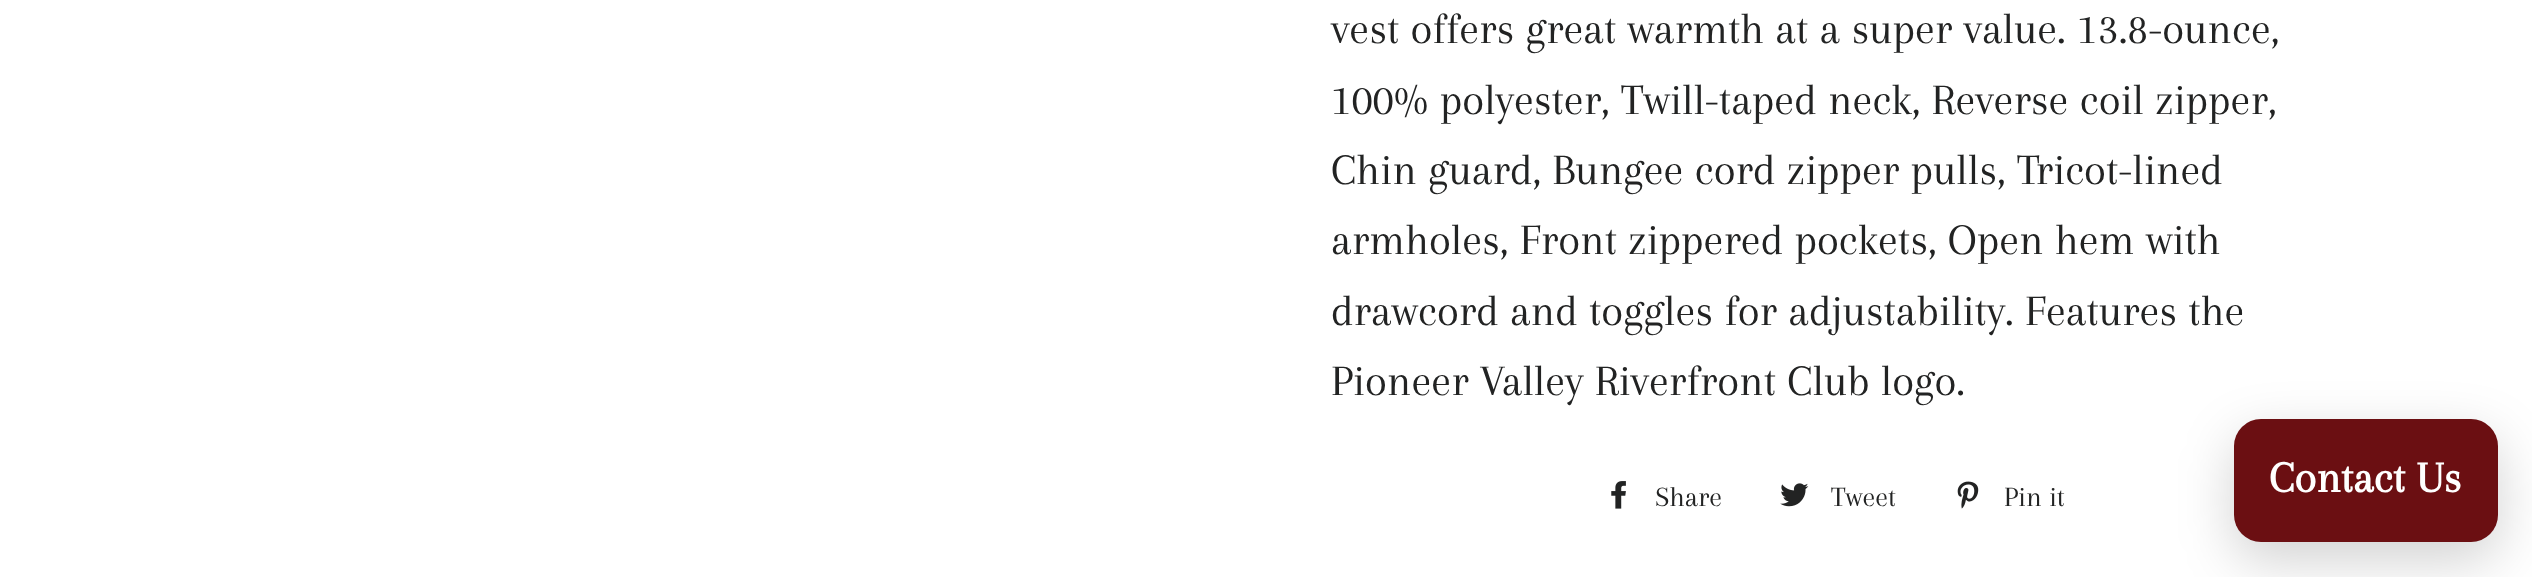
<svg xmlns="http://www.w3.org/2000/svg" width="2532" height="577">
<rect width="100%" height="100%" fill="#fff"/>
<text x="1331" y="43" style="font-family:Arapey;font-size:45px;fill:#222323">vest offers great warmth at a super value. 13.8-ounce,</text>
<text x="1331" y="114" style="font-family:Arapey;font-size:45px;fill:#222323">100% polyester, Twill-taped neck, Reverse coil zipper,</text>
<text x="1331" y="184" style="font-family:Arapey;font-size:45px;fill:#222323">Chin guard, Bungee cord zipper pulls, Tricot-lined</text>
<text x="1331" y="254" style="font-family:Arapey;font-size:45px;fill:#222323">armholes, Front zippered pockets, Open hem with</text>
<text x="1331" y="325" style="font-family:Arapey;font-size:45px;fill:#222323">drawcord and toggles for adjustability. Features the</text>
<text x="1331" y="395" style="font-family:Arapey;font-size:45px;fill:#222323">Pioneer Valley Riverfront Club logo.</text>
<image x="1611" y="481" width="15" height="28" href="media/1.png"/>
<text x="1655" y="506" style="font-family:Arapey;font-size:29px;fill:#222323">Share</text>
<image x="1780" y="483" width="29" height="24" href="media/2.png"/>
<text x="1831" y="506" style="font-family:Arapey;font-size:29px;fill:#222323">Tweet</text>
<image x="1957" y="481" width="22" height="28" href="media/3.png"/>
<text x="2004" y="506" style="font-family:Arapey;font-size:29px;fill:#222323">Pin it</text>
<rect x="2234" y="437" width="264" height="123" rx="27" fill="#0000002e" filter="blur(27px)"/>
<rect x="2234" y="419" width="264" height="123" rx="27" fill="#6b0f12"/>
<text x="2269" y="492" style="font-family:Arapey;font-size:45px;font-weight:bold;fill:#fff">Contact Us</text>
</svg>
